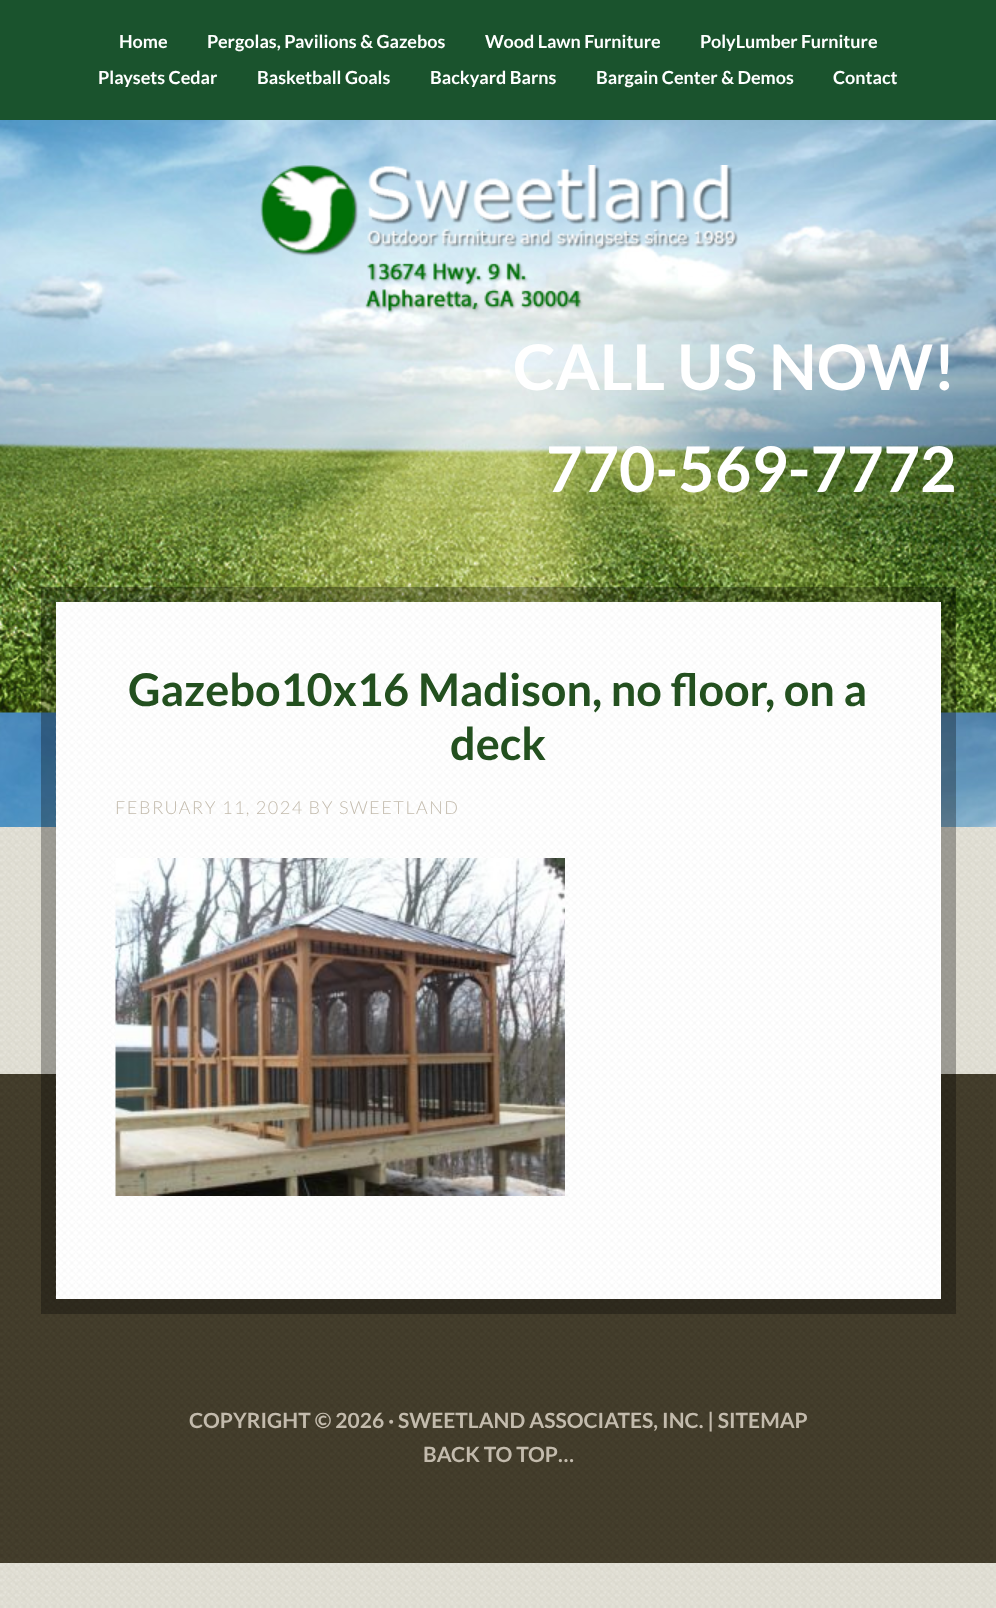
<svg xmlns="http://www.w3.org/2000/svg" width="996" height="1608">
<rect width="100%" height="100%" fill="#e1dfd4"/>
<image x="0" y="827" width="996" height="781" href="media/1.png"/>
<rect width="996" height="120" fill="#1a532d"/>
<text x="119" y="48" style="font-family:Lato;font-size:18px;font-weight:bold;fill:#fff">Home</text>
<text x="207" y="48" style="font-family:Lato;font-size:18px;font-weight:bold;fill:#fff">Pergolas, Pavilions &amp; Gazebos</text>
<text x="485" y="48" style="font-family:Lato;font-size:18px;font-weight:bold;fill:#fff">Wood Lawn Furniture</text>
<text x="700" y="48" style="font-family:Lato;font-size:18px;font-weight:bold;fill:#fff">PolyLumber Furniture</text>
<text x="98" y="84" style="font-family:Lato;font-size:18px;font-weight:bold;fill:#fff">Playsets Cedar</text>
<text x="257" y="84" style="font-family:Lato;font-size:18px;font-weight:bold;fill:#fff">Basketball Goals</text>
<text x="430" y="84" style="font-family:Lato;font-size:18px;font-weight:bold;fill:#fff">Backyard Barns</text>
<text x="596" y="84" style="font-family:Lato;font-size:18px;font-weight:bold;fill:#fff">Bargain Center &amp; Demos</text>
<text x="833" y="84" style="font-family:Lato;font-size:18px;font-weight:bold;fill:#fff">Contact</text>
<image x="0" y="120" width="996" height="707" href="media/2.png"/>
<image x="260" y="165" width="478" height="149" href="media/3.png"/>
<text x="513" y="390" style="font-family:Lato;font-size:63px;font-weight:bold;fill:#fff">CALL US NOW!</text>
<text x="546" y="492" style="font-family:Lato;font-size:63px;font-weight:bold;fill:#fff">770-569-7772</text>
<rect y="1074" width="996" height="489" fill="#443e2c"/>
<image x="0" y="1074" width="993" height="489" href="media/7.png"/>
<rect x="41" y="587" width="915" height="727" fill="#0000004d"/>
<image x="55" y="601" width="884" height="697" href="media/4.png"/>
<rect x="56" y="602" width="885" height="697" fill="#fff"/>
<image x="55" y="601" width="885" height="698" href="media/5.png"/>
<text x="128" y="706" style="font-family:Lato;font-size:45px;font-weight:bold;fill:#23501f">Gazebo10x16 Madison, no floor, on a</text>
<text x="450" y="760" style="font-family:Lato;font-size:45px;font-weight:bold;fill:#23501f">deck</text>
<text x="115" y="814" style="font-family:Lato;font-size:18px;font-weight:300;letter-spacing:1.5px;fill:#c3bbad">FEBRUARY 11, 2024 BY SWEETLAND</text>
<image x="115" y="858" width="450" height="338" href="media/6.png"/>
<text x="189" y="1428" style="font-family:Lato;font-size:21px;font-weight:bold;fill:#c3bbad">COPYRIGHT © 2026 · SWEETLAND ASSOCIATES, INC. | SITEMAP</text>
<text x="423" y="1462" style="font-family:Lato;font-size:21px;font-weight:bold;fill:#c3bbad">BACK TO TOP…</text>
</svg>
